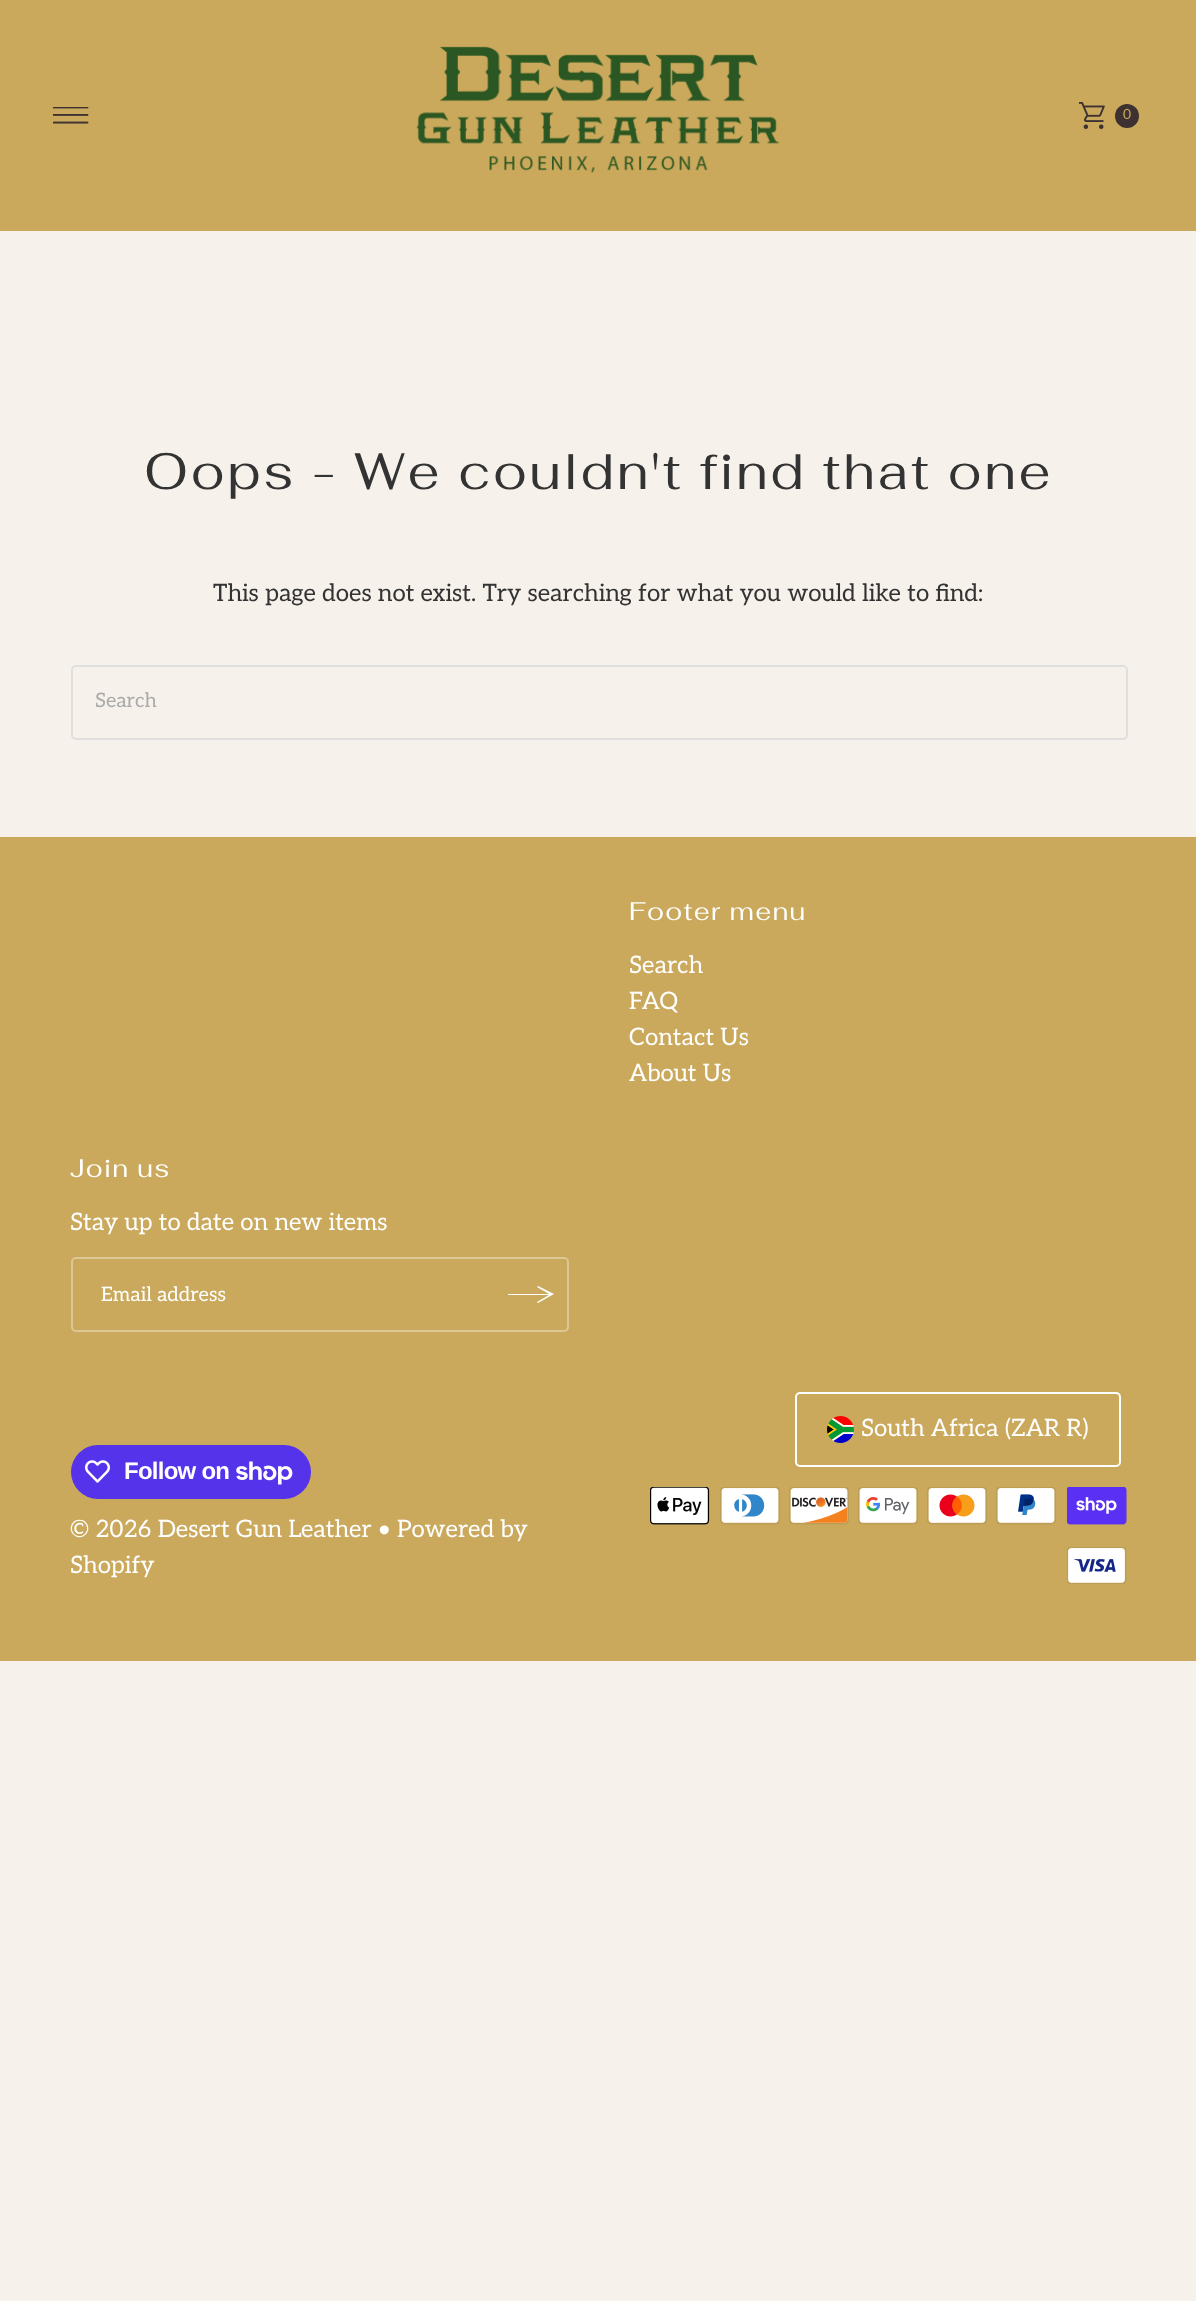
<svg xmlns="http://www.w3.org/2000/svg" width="1196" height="2301">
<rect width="100%" height="100%" fill="#f6f1eb"/>
<rect width="1196" height="231" fill="#caa95c"/>
<image x="53" y="107" width="36" height="17" href="media/1.png"/>
<image x="416" y="46" width="364" height="127" href="media/2.png"/>
<image x="1079" y="102" width="26" height="27" href="media/3.png"/>
<circle cx="1127" cy="116" r="12" fill="#3d3131"/>
<text x="1123" y="119" style="font-family:Aleo;font-size:14px;fill:#caa95c">0</text>
<text x="144" y="489" style="font-family:Fahkwang;font-size:51px;letter-spacing:2.55px;fill:#333">Oops - We couldn't find that one</text>
<text x="213" y="601" style="font-family:Aleo;font-size:24px;fill:#333">This page does not exist. Try searching for what you would like to find:</text>
<rect x="72" y="666" width="1055" height="73" rx="4" fill="none" stroke="#dfdfdf" stroke-width="2"/>
<text x="95" y="707" style="font-family:Aleo;font-size:20px;fill:#aaa">Search</text>
<rect y="837" width="1196" height="824" fill="#caa95c"/>
<text x="629" y="920" style="font-family:Fahkwang;font-size:25.5px;letter-spacing:1.25px;fill:#fff">Footer menu</text>
<text x="629" y="973" style="font-family:Aleo;font-size:24px;fill:#fff">Search</text>
<text x="629" y="1009" style="font-family:Aleo;font-size:24px;fill:#fff">FAQ</text>
<text x="629" y="1045" style="font-family:Aleo;font-size:24px;fill:#fff">Contact Us</text>
<text x="629" y="1081" style="font-family:Aleo;font-size:24px;fill:#fff">About Us</text>
<text x="70" y="1177" style="font-family:Fahkwang;font-size:25.5px;letter-spacing:1.25px;fill:#fff">Join us</text>
<text x="70" y="1230" style="font-family:Aleo;font-size:24px;fill:#fff">Stay up to date on new items</text>
<rect x="72" y="1258" width="496" height="73" rx="4" fill="none" stroke="#ddc795" stroke-width="2"/>
<text x="101" y="1301" style="font-family:Aleo;font-size:20px;fill:#fff">Email address</text>
<path d="M538 1286l16 8l-16 9l-1-1l12-7h-41v-1h41l-12-7z" fill="#fff"/>
<rect x="796" y="1393" width="324" height="73" rx="4" fill="none" stroke="#fff" stroke-width="2"/>
<image x="827" y="1416" width="27" height="27" href="media/4.png"/>
<text x="861" y="1436" style="font-family:Aleo;font-size:24px;fill:#fff">South Africa (ZAR R)</text>
<image x="650" y="1487" width="60" height="38" href="media/5.png"/>
<image x="720" y="1487" width="60" height="38" href="media/6.png"/>
<image x="789" y="1487" width="60" height="38" href="media/7.png"/>
<image x="858" y="1487" width="60" height="38" href="media/8.png"/>
<image x="927" y="1487" width="60" height="38" href="media/9.png"/>
<image x="996" y="1487" width="60" height="38" href="media/10.png"/>
<image x="1067" y="1487" width="60" height="38" href="media/11.png"/>
<image x="1067" y="1547" width="60" height="37" href="media/12.png"/>
<rect x="71" y="1445" width="240" height="54" rx="27" fill="#5433eb"/>
<image x="85" y="1460" width="25" height="23" href="media/13.png"/>
<text x="124" y="1479" style="font-family:Liberation Sans;font-size:24px;font-weight:bold;letter-spacing:-0.75px;fill:#fff">Follow on</text>
<image x="236" y="1461" width="57" height="24" href="media/14.png"/>
<text x="70" y="1537" style="font-family:Aleo;font-size:24px;fill:#fff">© 2026 Desert Gun Leather • Powered by</text>
<text x="70" y="1573" style="font-family:Aleo;font-size:24px;fill:#fff">Shopify</text>
</svg>
